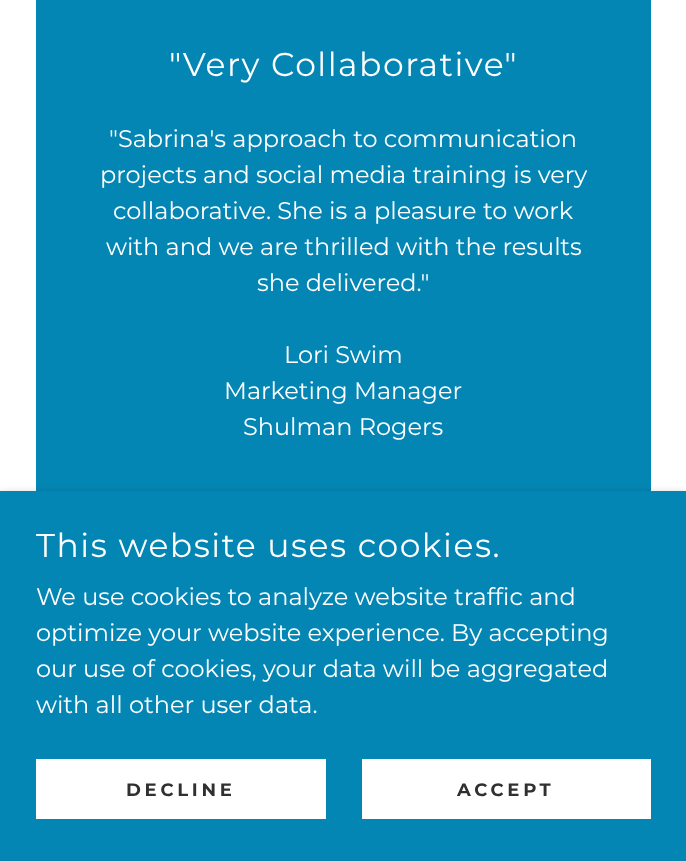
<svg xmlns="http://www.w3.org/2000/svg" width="686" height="861">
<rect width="100%" height="100%" fill="#fff"/>
<rect x="36" width="615" height="491" fill="#0486b4"/>
<text x="169" y="76" style="font-family:Montserrat;font-size:33px;letter-spacing:1.5px;fill:#fff">"Very Collaborative"</text>
<text x="109" y="147" style="font-family:Montserrat;font-size:24px;fill:#fff">"Sabrina's approach to communication</text>
<text x="100" y="183" style="font-family:Montserrat;font-size:24px;fill:#fff">projects and social media training is very</text>
<text x="113" y="219" style="font-family:Montserrat;font-size:24px;fill:#fff">collaborative. She is a pleasure to work</text>
<text x="106" y="255" style="font-family:Montserrat;font-size:24px;fill:#fff">with and we are thrilled with the results</text>
<text x="257" y="291" style="font-family:Montserrat;font-size:24px;fill:#fff">she delivered."</text>
<text x="284" y="363" style="font-family:Montserrat;font-size:24px;fill:#fff">Lori Swim</text>
<text x="224" y="399" style="font-family:Montserrat;font-size:24px;fill:#fff">Marketing Manager</text>
<text x="243" y="435" style="font-family:Montserrat;font-size:24px;fill:#fff">Shulman Rogers</text>
<rect y="494" width="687" height="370" fill="#0000004d" filter="blur(4.5px)"/>
<rect y="491" width="686" height="370" fill="#0486b4"/>
<text x="36" y="557" style="font-family:Montserrat;font-size:33px;letter-spacing:1.5px;fill:#fff">This website uses cookies.</text>
<text x="36" y="605" style="font-family:Montserrat;font-size:24px;fill:#fff">We use cookies to analyze website traffic and</text>
<text x="36" y="641" style="font-family:Montserrat;font-size:24px;fill:#fff">optimize your website experience. By accepting</text>
<text x="36" y="677" style="font-family:Montserrat;font-size:24px;fill:#fff">our use of cookies, your data will be aggregated</text>
<text x="36" y="713" style="font-family:Montserrat;font-size:24px;fill:#fff">with all other user data.</text>
<rect x="36" y="759" width="290" height="60" fill="#fff"/>
<text x="126" y="796" style="font-family:Montserrat;font-size:18px;font-weight:bold;letter-spacing:3.75px;fill:#303030">DECLINE</text>
<rect x="362" y="759" width="289" height="60" fill="#fff"/>
<text x="457" y="796" style="font-family:Montserrat;font-size:18px;font-weight:bold;letter-spacing:3.75px;fill:#303030">ACCEPT</text>
</svg>
